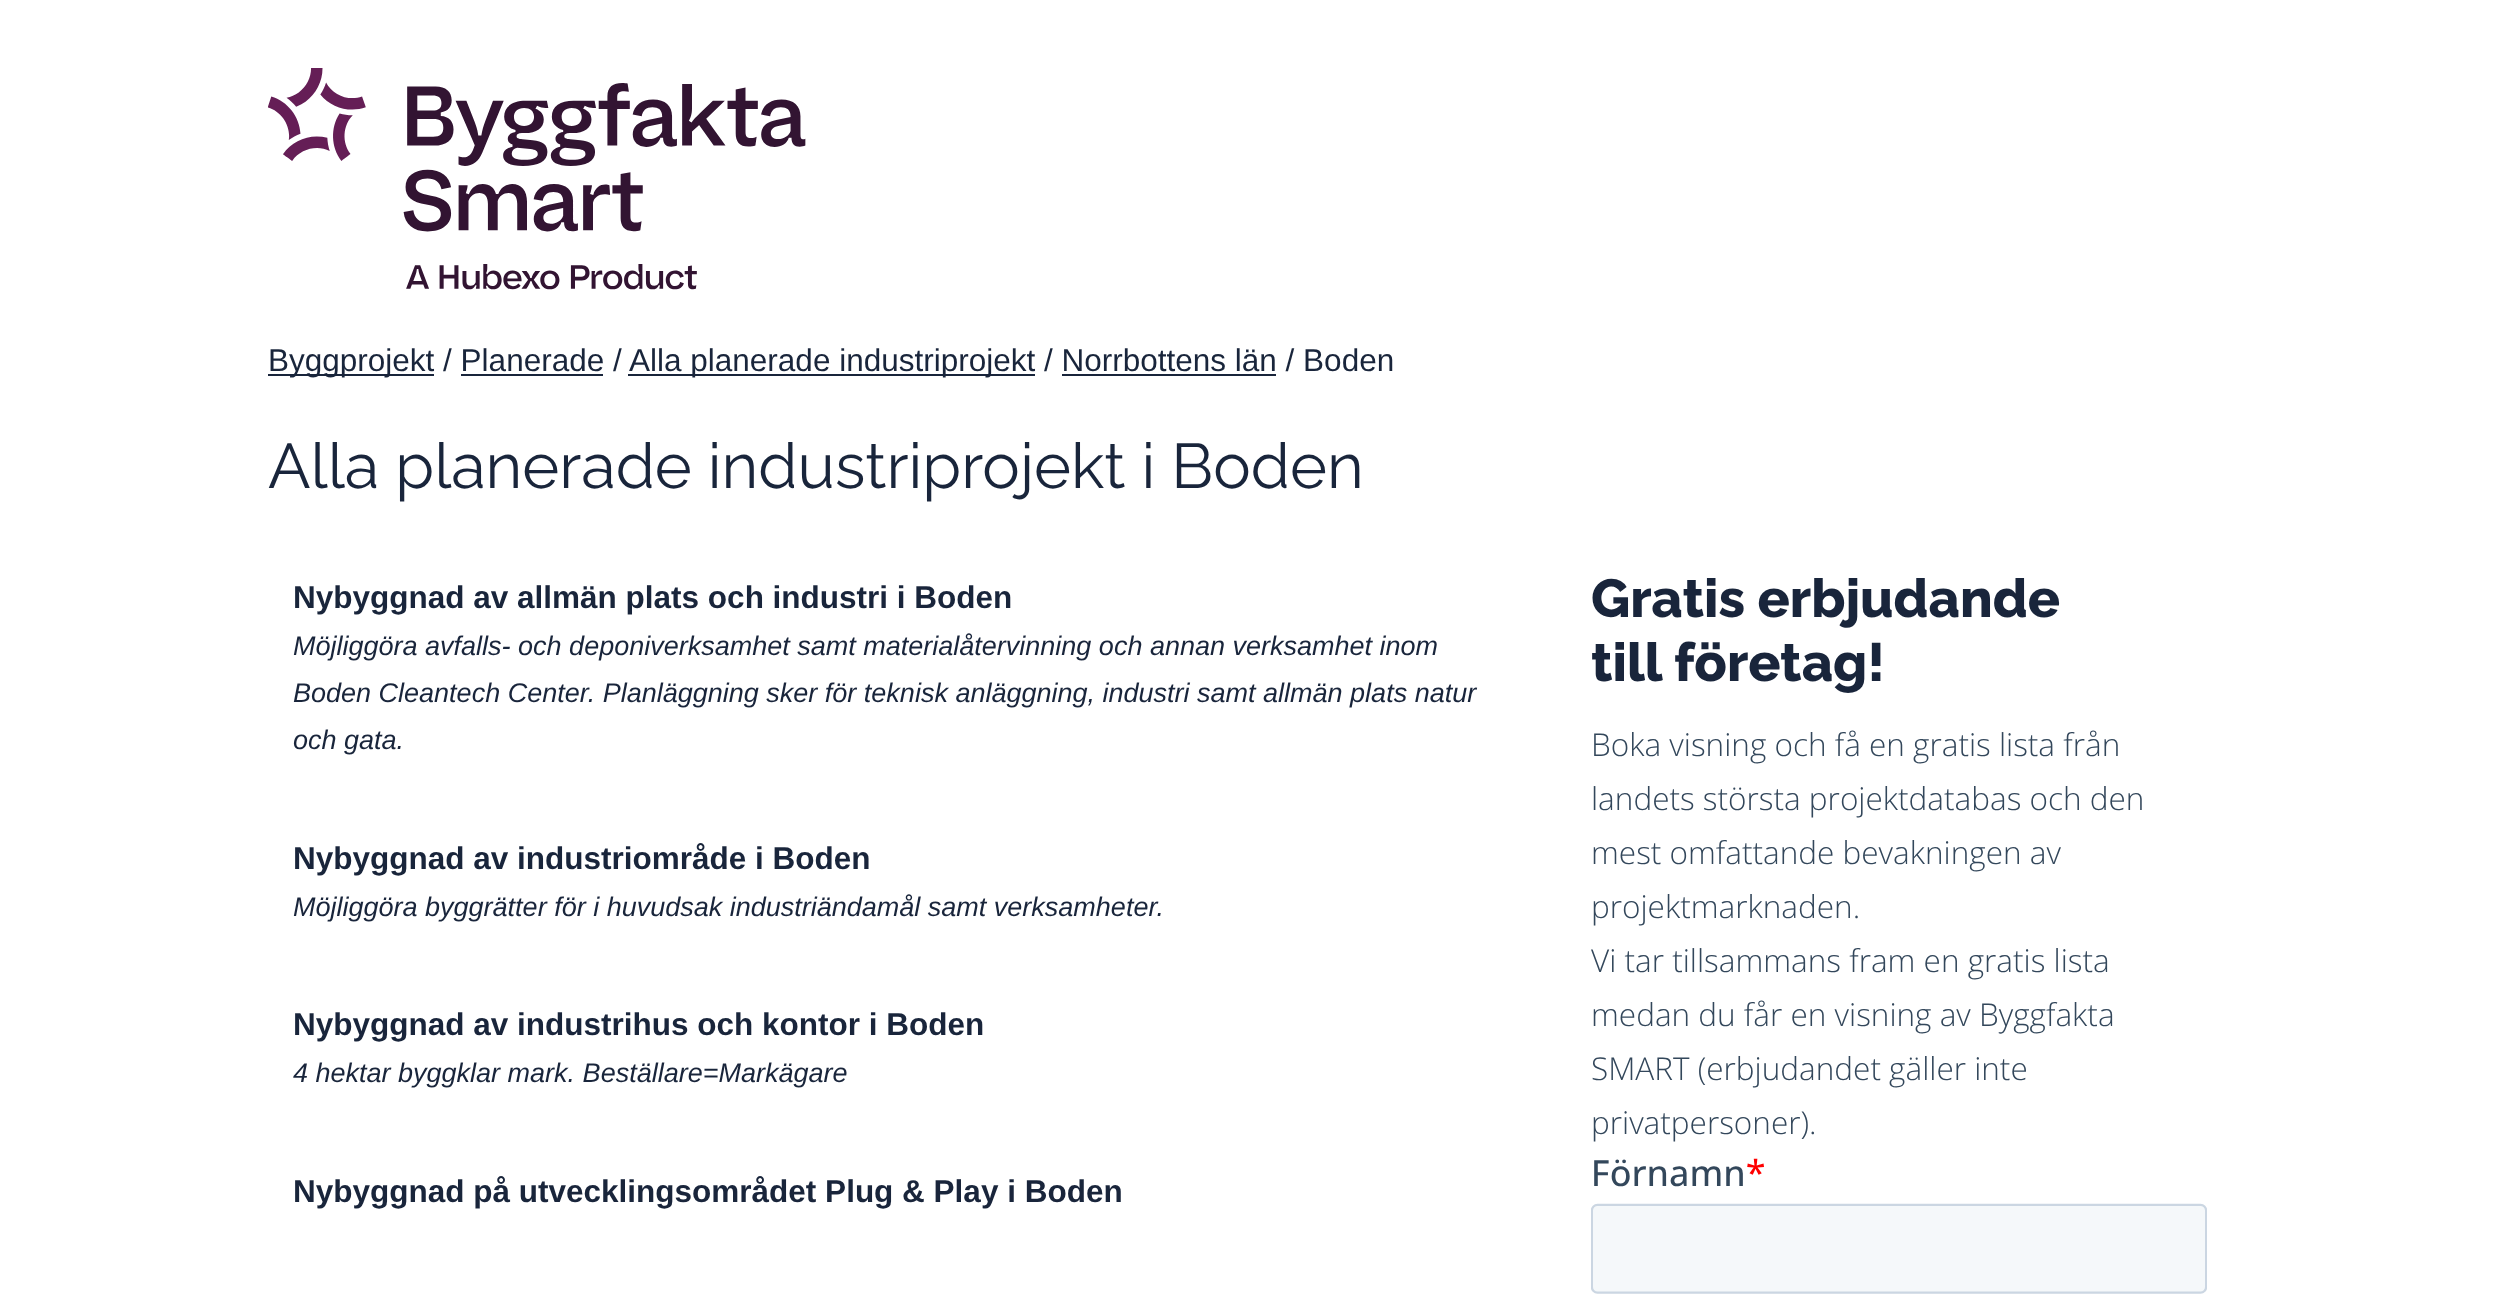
<svg xmlns="http://www.w3.org/2000/svg" width="2518" height="1314">
<rect width="100%" height="100%" fill="#fff"/>
<image x="268" y="68" width="538" height="222" href="media/1.png"/>
<rect x="268" y="374" width="166" height="2" fill="#19253b"/>
<text x="268" y="371" style="font-family:Liberation Sans;font-size:31.5px;fill:#19253b">Byggprojekt / Planerade /</text>
<rect x="628" y="374" width="407" height="2" fill="#19253b"/>
<text x="629" y="371" style="font-family:Liberation Sans;font-size:31.5px;fill:#19253b">Alla planerade industriprojekt / Norrbottens län / Boden</text>
<rect x="461" y="374" width="142" height="2" fill="#19253b"/>
<rect x="1062" y="374" width="214" height="2" fill="#19253b"/>
<text x="268" y="488" style="font-family:Raleway;font-size:63px;fill:#19253b">Alla planerade industriprojekt i Boden</text>
<text x="293" y="608" style="font-family:Liberation Sans;font-size:31.5px;font-weight:bold;fill:#19253b">Nybyggnad av allmän plats och industri i Boden</text>
<text x="293" y="655" style="font-family:Liberation Sans;font-size:27px;font-style:italic;fill:#19253b">Möjliggöra avfalls- och deponiverksamhet samt materialåtervinning och annan verksamhet inom</text>
<text x="293" y="702" style="font-family:Liberation Sans;font-size:27px;font-style:italic;fill:#19253b">Boden Cleantech Center. Planläggning sker för teknisk anläggning, industri samt allmän plats natur</text>
<text x="293" y="749" style="font-family:Liberation Sans;font-size:27px;font-style:italic;fill:#19253b">och gata.</text>
<text x="293" y="869" style="font-family:Liberation Sans;font-size:31.5px;font-weight:bold;fill:#19253b">Nybyggnad av industriområde i Boden</text>
<text x="293" y="916" style="font-family:Liberation Sans;font-size:27px;font-style:italic;fill:#19253b">Möjliggöra byggrätter för i huvudsak industriändamål samt verksamheter.</text>
<text x="293" y="1035" style="font-family:Liberation Sans;font-size:31.5px;font-weight:bold;fill:#19253b">Nybyggnad av industrihus och kontor i Boden</text>
<text x="293" y="1082" style="font-family:Liberation Sans;font-size:27px;font-style:italic;fill:#19253b">4 hektar byggklar mark. Beställare=Markägare</text>
<text x="293" y="1202" style="font-family:Liberation Sans;font-size:31.5px;font-weight:bold;fill:#19253b">Nybyggnad på utvecklingsområdet Plug &amp; Play i Boden</text>
<text x="1591" y="617" style="font-family:Raleway;font-size:53.5px;font-weight:800;fill:#19253b">Gratis erbjudande</text>
<text x="1591" y="681" style="font-family:Raleway;font-size:53.5px;font-weight:800;fill:#19253b">till företag!</text>
<text x="1591" y="756" style="font-family:Open Sans;font-size:31.5px;font-weight:300;fill:#33475b">Boka visning och få en gratis lista från</text>
<text x="1591" y="810" style="font-family:Open Sans;font-size:31.5px;font-weight:300;fill:#33475b">landets största projektdatabas och den</text>
<text x="1591" y="864" style="font-family:Open Sans;font-size:31.5px;font-weight:300;fill:#33475b">mest omfattande bevakningen av</text>
<text x="1591" y="918" style="font-family:Open Sans;font-size:31.5px;font-weight:300;fill:#33475b">projektmarknaden.</text>
<text x="1591" y="972" style="font-family:Open Sans;font-size:31.5px;font-weight:300;fill:#33475b">Vi tar tillsammans fram en gratis lista</text>
<text x="1591" y="1026" style="font-family:Open Sans;font-size:31.5px;font-weight:300;fill:#33475b">medan du får en visning av Byggfakta</text>
<text x="1591" y="1080" style="font-family:Open Sans;font-size:31.5px;font-weight:300;fill:#33475b">SMART (erbjudandet gäller inte</text>
<text x="1591" y="1134" style="font-family:Open Sans;font-size:31.5px;font-weight:300;fill:#33475b">privatpersoner).</text>
<image x="1591" y="1158" width="616" height="136" href="media/2.png"/>
</svg>
